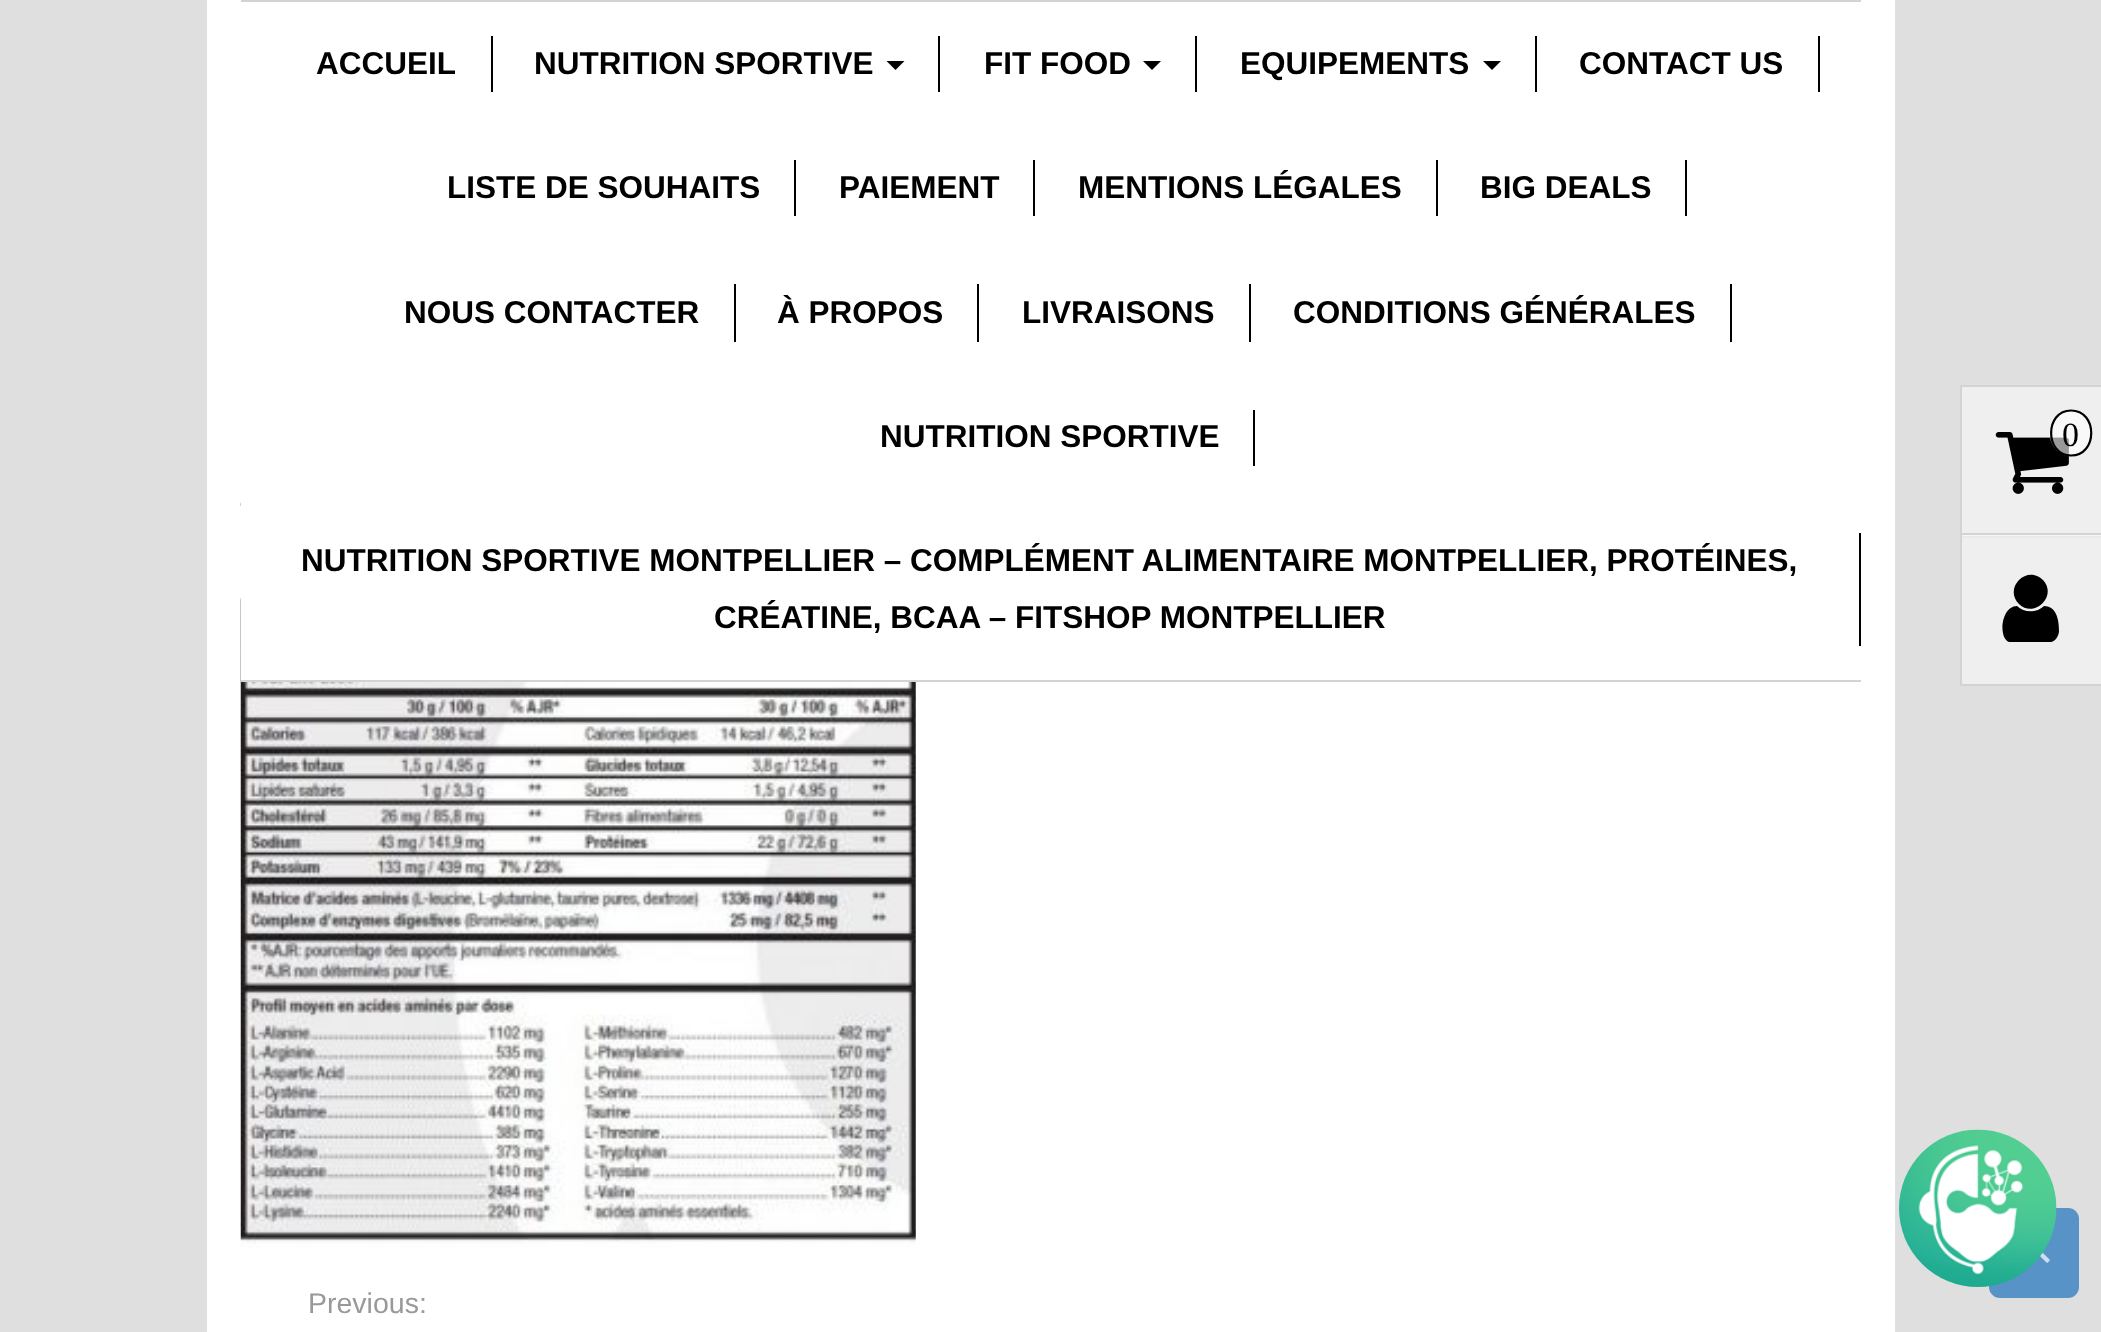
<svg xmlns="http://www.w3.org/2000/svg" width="2101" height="1332">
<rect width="100%" height="100%" fill="#dfdfdf"/>
<rect x="207" width="1688" height="1332" fill="#fff"/>
<image x="240" y="597" width="676" height="651" href="media/4.png"/>
<rect x="241" y="597" width="675" height="83" fill="#fff"/>
<rect x="241" width="1620" height="2" fill="#d3d3d3"/>
<rect x="241" y="680" width="1620" height="2" fill="#d3d3d3"/>
<rect x="491" y="36" width="2" height="56" fill="#000"/>
<text x="316" y="74" style="font-family:Liberation Sans;font-size:31.5px;font-weight:bold;fill:#000">ACCUEIL</text>
<rect x="938" y="36" width="2" height="56" fill="#000"/>
<text x="534" y="74" style="font-family:Liberation Sans;font-size:31.5px;font-weight:bold;fill:#000">NUTRITION SPORTIVE</text>
<path d="M886.5 61h18l-9 9z" fill="#000"/>
<rect x="1195" y="36" width="2" height="56" fill="#000"/>
<text x="984" y="74" style="font-family:Liberation Sans;font-size:31.5px;font-weight:bold;fill:#000">FIT FOOD</text>
<path d="M1143 61h18l-9 9z" fill="#000"/>
<rect x="1535" y="36" width="2" height="56" fill="#000"/>
<text x="1240" y="74" style="font-family:Liberation Sans;font-size:31.5px;font-weight:bold;fill:#000">EQUIPEMENTS</text>
<path d="M1483 61h18l-9 9z" fill="#000"/>
<rect x="1818" y="36" width="2" height="56" fill="#000"/>
<text x="1579" y="74" style="font-family:Liberation Sans;font-size:31.5px;font-weight:bold;fill:#000">CONTACT US</text>
<rect x="794" y="160" width="2" height="56" fill="#000"/>
<text x="447" y="198" style="font-family:Liberation Sans;font-size:31.5px;font-weight:bold;fill:#000">LISTE DE SOUHAITS</text>
<rect x="1033" y="160" width="2" height="56" fill="#000"/>
<text x="839" y="198" style="font-family:Liberation Sans;font-size:31.5px;font-weight:bold;fill:#000">PAIEMENT</text>
<rect x="1436" y="160" width="2" height="56" fill="#000"/>
<text x="1078" y="198" style="font-family:Liberation Sans;font-size:31.5px;font-weight:bold;fill:#000">MENTIONS LÉGALES</text>
<rect x="1685" y="160" width="2" height="56" fill="#000"/>
<text x="1480" y="198" style="font-family:Liberation Sans;font-size:31.5px;font-weight:bold;fill:#000">BIG DEALS</text>
<rect x="734" y="284" width="2" height="58" fill="#000"/>
<text x="404" y="323" style="font-family:Liberation Sans;font-size:31.5px;font-weight:bold;fill:#000">NOUS CONTACTER</text>
<rect x="977" y="284" width="2" height="58" fill="#000"/>
<text x="777" y="323" style="font-family:Liberation Sans;font-size:31.5px;font-weight:bold;fill:#000">À PROPOS</text>
<rect x="1249" y="284" width="2" height="58" fill="#000"/>
<text x="1022" y="323" style="font-family:Liberation Sans;font-size:31.5px;font-weight:bold;fill:#000">LIVRAISONS</text>
<rect x="1730" y="284" width="2" height="58" fill="#000"/>
<text x="1293" y="323" style="font-family:Liberation Sans;font-size:31.5px;font-weight:bold;fill:#000">CONDITIONS GÉNÉRALES</text>
<rect x="1253" y="410" width="2" height="56" fill="#000"/>
<text x="880" y="447" style="font-family:Liberation Sans;font-size:31.5px;font-weight:bold;fill:#000">NUTRITION SPORTIVE</text>
<rect x="1859" y="533" width="2" height="113" fill="#000"/>
<text x="301" y="571" style="font-family:Liberation Sans;font-size:31.5px;font-weight:bold;fill:#000">NUTRITION SPORTIVE MONTPELLIER – COMPLÉMENT ALIMENTAIRE MONTPELLIER, PROTÉINES,</text>
<text x="714" y="628" style="font-family:Liberation Sans;font-size:31.5px;font-weight:bold;fill:#000">CRÉATINE, BCAA – FITSHOP MONTPELLIER</text>
<rect x="1961" y="386" width="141" height="151" fill="#efefef" stroke="#d3d3d3" stroke-width="2"/>
<image x="1995" y="432" width="74" height="62" href="media/1.png"/>
<ellipse cx="2071" cy="433" rx="21.5" ry="23.5" fill="#ffffff99"/>
<path d="M2071 410.5c27 0 27 45 0 45c-26.5 0-26.5-45 0-45z" fill="none" stroke="#000" stroke-width="2.2"/>
<text x="2062" y="446" style="font-family:Liberation Serif;font-size:34px;fill:#000">0</text>
<rect x="1961" y="534" width="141" height="151" fill="#ffffff80" stroke="#d3d3d3" stroke-width="2"/>
<path d="M2059 631c0 4-3 10-8 11h-33h-9c-11-4-8-36 8-36c7 7 20 7 27 0c13 0 15 15 15 25zm-16-51c15 16-9 39-24 24c-16-16 8-40 24-24z" fill="#000"/>
<rect x="1989" y="1208" width="90" height="90" rx="11" fill="#5893c8"/>
<image x="2040" y="1252" width="10" height="11" href="media/2.png"/>
<image x="240" y="502" width="1" height="5" href="media/3.png"/>
<text x="308" y="1313" style="font-family:Liberation Sans;font-size:28.5px;fill:#999">Previous:</text>
<image x="1899" y="1129" width="158" height="158" href="media/5.png"/>
</svg>
